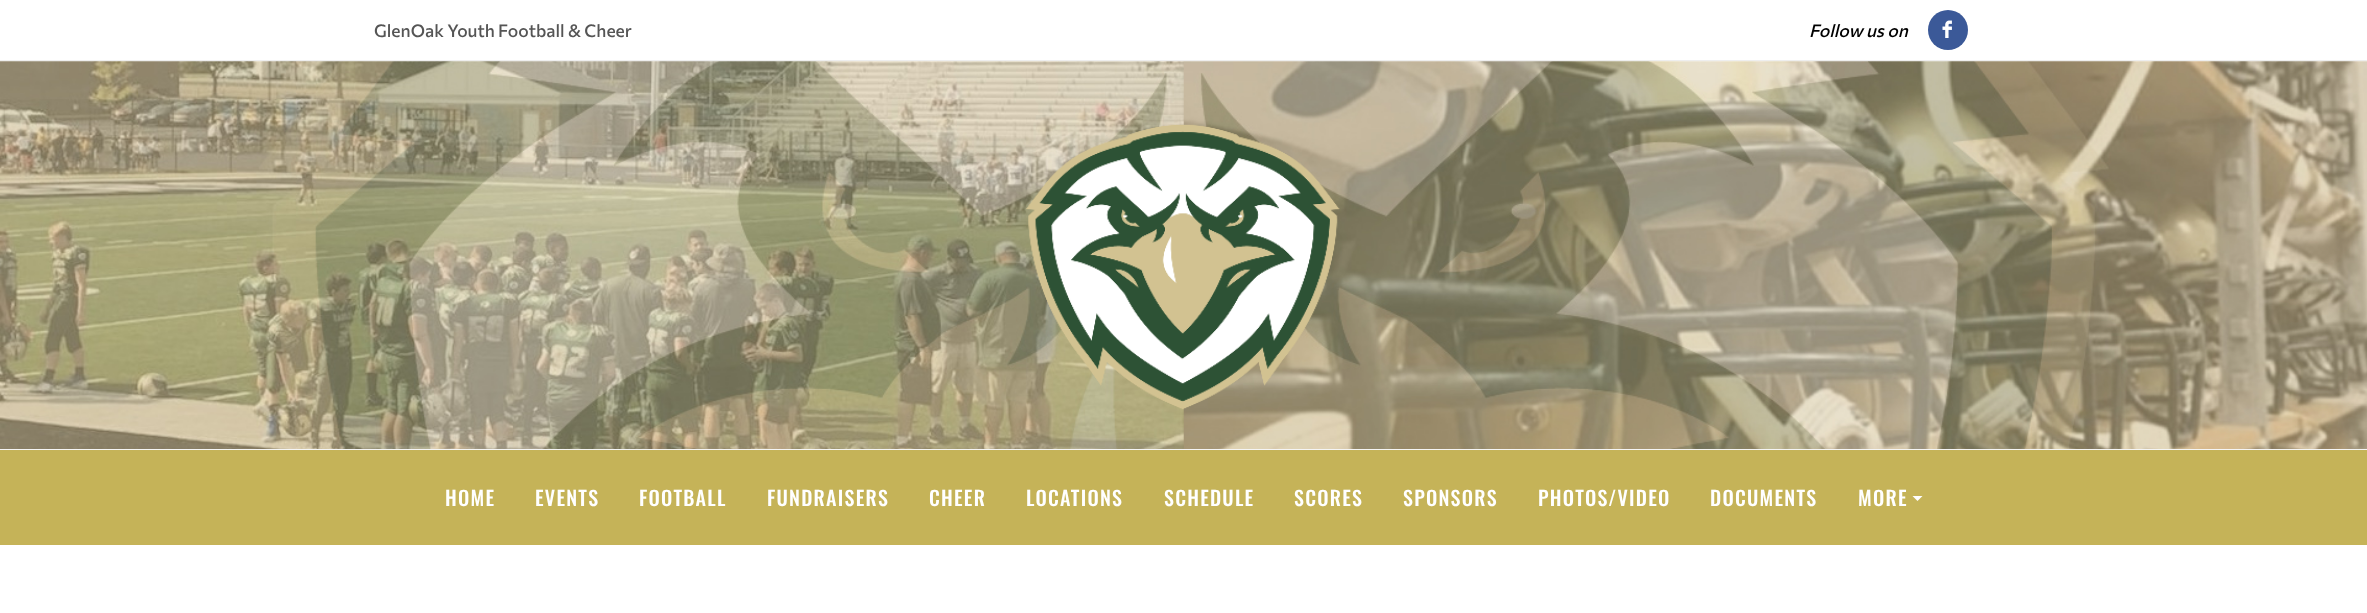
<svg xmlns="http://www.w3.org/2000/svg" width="2367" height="613">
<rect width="100%" height="100%" fill="#fff"/>
<rect y="60" width="2367" height="1" fill="#eee"/>
<text x="374" y="37" style="font-family:Commissioner;font-size:17.5px;font-weight:500;fill:#555">GlenOak Youth Football &amp; Cheer</text>
<text x="1809" y="37" style="font-family:Commissioner;font-size:17.5px;font-weight:500;font-style:italic;fill:#000">Follow us on</text>
<circle cx="1948" cy="30" r="20" fill="#3b5998"/>
<image x="1942" y="20" width="10" height="18" href="media/1.png"/>
<image x="0" y="61" width="2367" height="388" href="media/2.png"/>
<image x="1026" y="124" width="314" height="286" href="media/3.png"/>
<rect y="450" width="2367" height="95" fill="#c5b358"/>
<rect y="449" width="2367" height="1" fill="#f5f5f5"/>
<text x="445" y="506" style="font-family:Oswald;font-size:20px;font-weight:500;letter-spacing:1.25px;fill:#fff">HOME</text>
<text x="535" y="506" style="font-family:Oswald;font-size:20px;font-weight:500;letter-spacing:1.25px;fill:#fff">EVENTS</text>
<text x="639" y="506" style="font-family:Oswald;font-size:20px;font-weight:500;letter-spacing:1.25px;fill:#fff">FOOTBALL</text>
<text x="767" y="506" style="font-family:Oswald;font-size:20px;font-weight:500;letter-spacing:1.25px;fill:#fff">FUNDRAISERS</text>
<text x="929" y="506" style="font-family:Oswald;font-size:20px;font-weight:500;letter-spacing:1.25px;fill:#fff">CHEER</text>
<text x="1026" y="506" style="font-family:Oswald;font-size:20px;font-weight:500;letter-spacing:1.25px;fill:#fff">LOCATIONS</text>
<text x="1164" y="506" style="font-family:Oswald;font-size:20px;font-weight:500;letter-spacing:1.25px;fill:#fff">SCHEDULE</text>
<text x="1294" y="506" style="font-family:Oswald;font-size:20px;font-weight:500;letter-spacing:1.25px;fill:#fff">SCORES</text>
<text x="1403" y="506" style="font-family:Oswald;font-size:20px;font-weight:500;letter-spacing:1.25px;fill:#fff">SPONSORS</text>
<text x="1538" y="506" style="font-family:Oswald;font-size:20px;font-weight:500;letter-spacing:1.25px;fill:#fff">PHOTOS/VIDEO</text>
<text x="1710" y="506" style="font-family:Oswald;font-size:20px;font-weight:500;letter-spacing:1.25px;fill:#fff">DOCUMENTS</text>
<text x="1858" y="506" style="font-family:Oswald;font-size:20px;font-weight:500;letter-spacing:1.25px;fill:#fff">MORE</text>
<path d="M1912.5 496h10l-5 5z" fill="#fff"/>
</svg>
